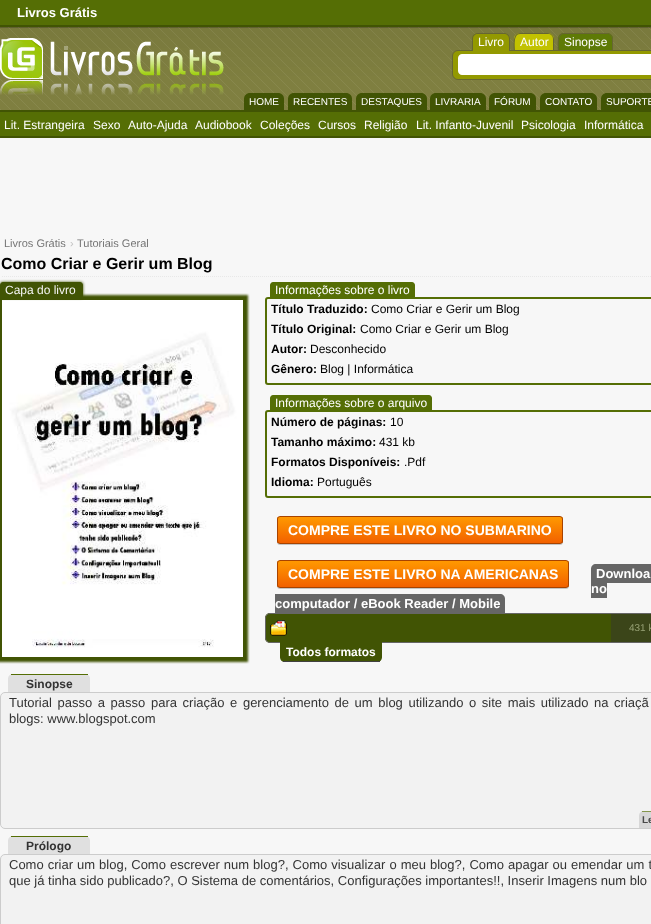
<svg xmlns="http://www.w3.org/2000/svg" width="651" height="924">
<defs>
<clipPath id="clip1"><rect x="277" y="516" width="286" height="28" rx="3"/></clipPath>
<linearGradient id="g1" gradientUnits="userSpaceOnUse" x1="420" y1="517" x2="420" y2="543"><stop offset="0" stop-color="#f90"/><stop offset="1" stop-color="#f26100"/></linearGradient>
<clipPath id="clip2"><rect x="277" y="560" width="292" height="28" rx="3"/></clipPath>
<linearGradient id="g2" gradientUnits="userSpaceOnUse" x1="423" y1="561" x2="423" y2="587"><stop offset="0" stop-color="#f90"/><stop offset="1" stop-color="#f26100"/></linearGradient>
</defs>
<rect width="100%" height="100%" fill="#f7f7f7"/>
<image x="0" y="27" width="651" height="83" href="media/1.png"/>
<rect y="2" width="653" height="26" fill="#00000033" filter="blur(0.5px)"/>
<rect y="25" width="651" height="2" fill="#415404"/>
<rect width="651" height="25" fill="#556e05"/>
<text x="17" y="17" style="font-family:Liberation Sans;font-size:13px;font-weight:bold;fill:#fff">Livros Grátis</text>
<image x="0" y="38" width="224" height="57" href="media/2.png"/>
<path d="M520 33h28c3.5 0 6 2.5 6 6v12h-40v-12c0-3.5 2.5-6 6-6z" fill="#c2c200"/>
<path d="M520 33h28c3 0 6 3 6 6v12h-40c0-5-2-18 6-18zm0 1h28c3 0 5 2 5 5v12h-38c0-4-2-17 5-17z" fill="#663" fill-rule="evenodd"/>
<path d="M564 33h43c3.5 0 6 2.5 6 6v12h-55v-12c0-3.5 2.5-6 6-6z" fill="#5e7a06"/>
<path d="M564 33h43c3 0 6 3 6 6v12h-55c0-5-2-18 6-18zm0 1h43c3 0 5 2 5 5v12h-53c0-4-2-17 5-17z" fill="#663" fill-rule="evenodd"/>
<rect x="452.5" y="50.5" width="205" height="29" rx="5.5" fill="#939900" stroke="#663"/>
<path d="M478 33h26c3.5 0 6 2.5 6 6v12h-38v-12c0-3.5 2.5-6 6-6z" fill="#939900"/>
<path d="M478 33h26c3.5 0 6 2.5 6 6v12h-38v-12c0-3.5 2.5-6 6-6zm0 1h26c3 0 5 2 5 5v12h-36v-12c0-3 2-5 5-5z" fill="#663" fill-rule="evenodd"/>
<text x="478" y="46" style="font-family:Liberation Sans;font-size:12px;fill:#fff">Livro</text>
<text x="520" y="46" style="font-family:Liberation Sans;font-size:12px;fill:#fff">Autor</text>
<text x="564" y="46" style="font-family:Liberation Sans;font-size:12px;fill:#fff">Sinopse</text>
<path d="M462 54h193v21h-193c-2 0-4-2-4-4v-13c0-2 2-4 4-4z" fill="#fff"/>
<path d="M250 93h28c3.5 0 6 2.5 6 6v11h-40v-11c0-3.5 2.5-6 6-6z" fill="#415404"/>
<text x="249" y="105" style="font-family:Liberation Sans;font-size:10px;fill:#fff">HOME</text>
<path d="M294 93h52c3.5 0 6 2.5 6 6v11h-64v-11c0-3.5 2.5-6 6-6z" fill="#415404"/>
<text x="293" y="105" style="font-family:Liberation Sans;font-size:10px;fill:#fff">RECENTES</text>
<path d="M362 93h59c3.5 0 6 2.5 6 6v11h-71v-11c0-3.5 2.5-6 6-6z" fill="#415404"/>
<text x="361" y="105" style="font-family:Liberation Sans;font-size:10px;fill:#fff">DESTAQUES</text>
<path d="M436 93h44c3.5 0 6 2.5 6 6v11h-56v-11c0-3.5 2.5-6 6-6z" fill="#415404"/>
<text x="435" y="105" style="font-family:Liberation Sans;font-size:10px;fill:#fff">LIVRARIA</text>
<path d="M495 93h35c3.5 0 6 2.5 6 6v11h-47v-11c0-3.5 2.5-6 6-6z" fill="#415404"/>
<text x="494" y="105" style="font-family:Liberation Sans;font-size:10px;fill:#fff">FÓRUM</text>
<path d="M546 93h45c3.5 0 6 2.5 6 6v11h-57v-11c0-3.5 2.5-6 6-6z" fill="#415404"/>
<text x="545" y="105" style="font-family:Liberation Sans;font-size:10px;fill:#fff">CONTATO</text>
<path d="M607 93h44c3.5 0 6 2.5 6 6v11h-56v-11c0-3.5 2.5-6 6-6z" fill="#415404"/>
<text x="606" y="105" style="font-family:Liberation Sans;font-size:10px;fill:#fff">SUPORTE</text>
<rect y="112" width="651" height="24" fill="#556e05"/>
<rect y="110" width="651" height="2" fill="#415404"/>
<rect y="136" width="651" height="2" fill="#415404"/>
<text x="4" y="129" style="font-family:Liberation Sans;font-size:12px;fill:#fff">Lit. Estrangeira</text>
<text x="93" y="129" style="font-family:Liberation Sans;font-size:12px;fill:#fff">Sexo</text>
<text x="128" y="129" style="font-family:Liberation Sans;font-size:12px;fill:#fff">Auto-Ajuda</text>
<text x="195" y="129" style="font-family:Liberation Sans;font-size:12px;fill:#fff">Audiobook</text>
<text x="260" y="129" style="font-family:Liberation Sans;font-size:12px;fill:#fff">Coleções</text>
<text x="318" y="129" style="font-family:Liberation Sans;font-size:12px;fill:#fff">Cursos</text>
<text x="364" y="129" style="font-family:Liberation Sans;font-size:12px;fill:#fff">Religião</text>
<text x="416" y="129" style="font-family:Liberation Sans;font-size:12px;fill:#fff">Lit. Infanto-Juvenil</text>
<text x="521" y="129" style="font-family:Liberation Sans;font-size:12px;fill:#fff">Psicologia</text>
<text x="584" y="129" style="font-family:Liberation Sans;font-size:12px;fill:#fff">Informática</text>
<text x="4" y="247" style="font-family:Liberation Sans;font-size:11px;fill:#757575">Livros Grátis</text>
<text x="70" y="247" style="font-family:Liberation Sans;font-size:11px;fill:#c2c2c2">›</text>
<text x="77" y="247" style="font-family:Liberation Sans;font-size:11px;fill:#757575">Tutoriais Geral</text>
<path d="M0 276.5h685" fill="none" stroke="#e8e8e8" stroke-dasharray="1 1"/>
<rect y="276" width="1" height="1" fill="#f7f7f7"/>
<text x="1" y="269" style="font-family:Liberation Sans;font-size:16px;font-weight:bold;fill:#000">Como Criar e Gerir um Blog</text>
<rect x="-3" y="295" width="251" height="367" fill="#415404" filter="blur(1px)"/>
<image x="2" y="300" width="241" height="357" href="media/3.png"/>
<rect y="282" width="83" height="16" rx="3" fill="#415404" filter="blur(1.5px)"/>
<path d="M3 282h77c1.5 0 3 1.5 3 3v13h-83v-13c0-1.5 1.5-3 3-3z" fill="#415404"/>
<text x="5" y="294" style="font-family:Liberation Sans;font-size:12px;fill:#f5f5f5">Capa do livro</text>
<path d="M273 282h139c1.5 0 3 1.5 3 3v12h-145v-12c0-1.5 1.5-3 3-3z" fill="#556e05"/>
<text x="275" y="294" style="font-family:Liberation Sans;font-size:12px;fill:#fff">Informações sobre o livro</text>
<rect x="266" y="298" width="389" height="86" rx="2" fill="none" stroke="#556e05" stroke-width="2"/>
<text x="271" y="313" style="font-family:Liberation Sans;font-size:12px;font-weight:bold;fill:#000">Título Traduzido:</text>
<text x="371" y="313" style="font-family:Liberation Sans;font-size:12px;fill:#000">Como Criar e Gerir um Blog</text>
<text x="271" y="333" style="font-family:Liberation Sans;font-size:12px;font-weight:bold;fill:#000">Título Original:</text>
<text x="360" y="333" style="font-family:Liberation Sans;font-size:12px;fill:#000">Como Criar e Gerir um Blog</text>
<text x="271" y="353" style="font-family:Liberation Sans;font-size:12px;font-weight:bold;fill:#000">Autor:</text>
<text x="310" y="353" style="font-family:Liberation Sans;font-size:12px;fill:#000">Desconhecido</text>
<text x="271" y="373" style="font-family:Liberation Sans;font-size:12px;font-weight:bold;fill:#000">Gênero:</text>
<text x="320" y="373" style="font-family:Liberation Sans;font-size:12px;fill:#000">Blog | Informática</text>
<path d="M273 395h156c1.5 0 3 1.5 3 3v12h-162v-12c0-1.5 1.5-3 3-3z" fill="#556e05"/>
<text x="275" y="407" style="font-family:Liberation Sans;font-size:12px;fill:#fff">Informações sobre o arquivo</text>
<rect x="266" y="411" width="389" height="86" rx="2" fill="none" stroke="#556e05" stroke-width="2"/>
<text x="271" y="426" style="font-family:Liberation Sans;font-size:12px;font-weight:bold;fill:#000">Número de páginas:</text>
<text x="390" y="426" style="font-family:Liberation Sans;font-size:12px;fill:#000">10</text>
<text x="271" y="446" style="font-family:Liberation Sans;font-size:12px;font-weight:bold;fill:#000">Tamanho máximo:</text>
<text x="379" y="446" style="font-family:Liberation Sans;font-size:12px;fill:#000">431 kb</text>
<text x="271" y="466" style="font-family:Liberation Sans;font-size:12px;font-weight:bold;fill:#000">Formatos Disponíveis:</text>
<text x="404" y="466" style="font-family:Liberation Sans;font-size:12px;fill:#000">.Pdf</text>
<text x="271" y="486" style="font-family:Liberation Sans;font-size:12px;font-weight:bold;fill:#000">Idioma:</text>
<text x="317" y="486" style="font-family:Liberation Sans;font-size:12px;fill:#000">Português</text>
<rect x="277" y="517" width="286" height="28" rx="3" fill="#00000033" filter="blur(0.5px)"/>
<g clip-path="url(#clip1)">
<rect x="277" y="517" width="286" height="26" fill="url(#g1)"/>
</g>
<rect x="277.5" y="516.5" width="285" height="27" rx="2.5" fill="none" stroke="#a84300"/>
<text x="288" y="535" style="font-family:Liberation Sans;font-size:14px;font-weight:bold;fill:#fff">COMPRE ESTE LIVRO NO SUBMARINO</text>
<rect x="277" y="561" width="292" height="28" rx="3" fill="#00000033" filter="blur(0.5px)"/>
<g clip-path="url(#clip2)">
<rect x="277" y="561" width="292" height="26" fill="url(#g2)"/>
</g>
<rect x="277.5" y="560.5" width="291" height="27" rx="2.5" fill="none" stroke="#a84300"/>
<text x="288" y="579" style="font-family:Liberation Sans;font-size:14px;font-weight:bold;fill:#fff">COMPRE ESTE LIVRO NA AMERICANAS</text>
<path d="M596 564h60v19h-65v-14c0-3 2-5 5-5z" fill="#666"/>
<text x="596" y="578" style="font-family:Liberation Sans;font-size:13px;font-weight:bold;fill:#fff">Downloa</text>
<rect x="591" y="583" width="16" height="15" fill="#666"/>
<text x="591" y="593" style="font-family:Liberation Sans;font-size:13px;font-weight:bold;fill:#fff">no</text>
<path d="M275 594h225c3 0 5 2 5 5v14h-230z" fill="#666"/>
<text x="275" y="608" style="font-family:Liberation Sans;font-size:13px;font-weight:bold;fill:#fff">computador / eBook Reader / Mobile</text>
<rect x="265" y="613" width="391" height="30" rx="5" fill="#415404"/>
<image x="270" y="620" width="17" height="16" href="media/4.png"/>
<rect x="265.5" y="613.5" width="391" height="29" rx="4.5" fill="none" stroke="#666"/>
<rect x="611" y="614" width="40" height="28" fill="#3b4519"/>
<text x="629" y="631" style="font-family:Liberation Sans;font-size:10px;fill:#97a175">431 k</text>
<path d="M280 642h102v15c0 3-2 5-5 5h-92c-3 0-5-2-5-5z" fill="#415404"/>
<text x="286" y="656" style="font-family:Liberation Sans;font-size:12px;font-weight:bold;fill:#fff">Todos formatos</text>
<rect x="283" y="661" width="97" height="1" fill="#414141"/>
<path d="M13 674h72c3 0 5 2 5 5v13h-82v-13c0-3 2-5 5-5z" fill="#e0e0e0"/>
<rect x="11" y="674" width="77" height="1" fill="#556e05"/>
<text x="26" y="688" style="font-family:Liberation Sans;font-size:12px;font-weight:bold;fill:#333">Sinopse</text>
<rect x="0.5" y="692.5" width="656" height="136" rx="4.5" fill="#f2f2f2" stroke="#ccc"/>
<text x="9" y="707" word-spacing="2" style="font-family:Liberation Sans;font-size:13px;fill:#333">Tutorial passo a passo para criação e gerenciamento de um blog utilizando o site mais utilizado na criaçã</text>
<text x="9" y="723" style="font-family:Liberation Sans;font-size:13px;fill:#333">blogs: www.blogspot.com</text>
<path d="M644 811h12v13c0 3-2 5-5 5h-12v-13c0-3 2-5 5-5z" fill="#ccccccb3"/>
<rect x="642" y="811" width="9" height="1" fill="#84964c"/>
<text x="642" y="823" style="font-family:Liberation Sans;font-size:10px;font-weight:bold;fill:#494949">Le</text>
<path d="M13 836h72c3 0 5 2 5 5v13h-82v-13c0-3 2-5 5-5z" fill="#e0e0e0"/>
<rect x="11" y="836" width="77" height="1" fill="#556e05"/>
<text x="26" y="850" style="font-family:Liberation Sans;font-size:12px;font-weight:bold;fill:#333">Prólogo</text>
<rect x="0.5" y="854.5" width="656" height="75" rx="4.5" fill="#f2f2f2" stroke="#ccc"/>
<text x="9" y="869" word-spacing="0.4" style="font-family:Liberation Sans;font-size:13px;fill:#333">Como criar um blog, Como escrever num blog?, Como visualizar o meu blog?, Como apagar ou emendar um t</text>
<text x="9" y="885" style="font-family:Liberation Sans;font-size:13px;fill:#333">que já tinha sido publicado?, O Sistema de comentários, Configurações importantes!!, Inserir Imagens num blo</text>
</svg>
